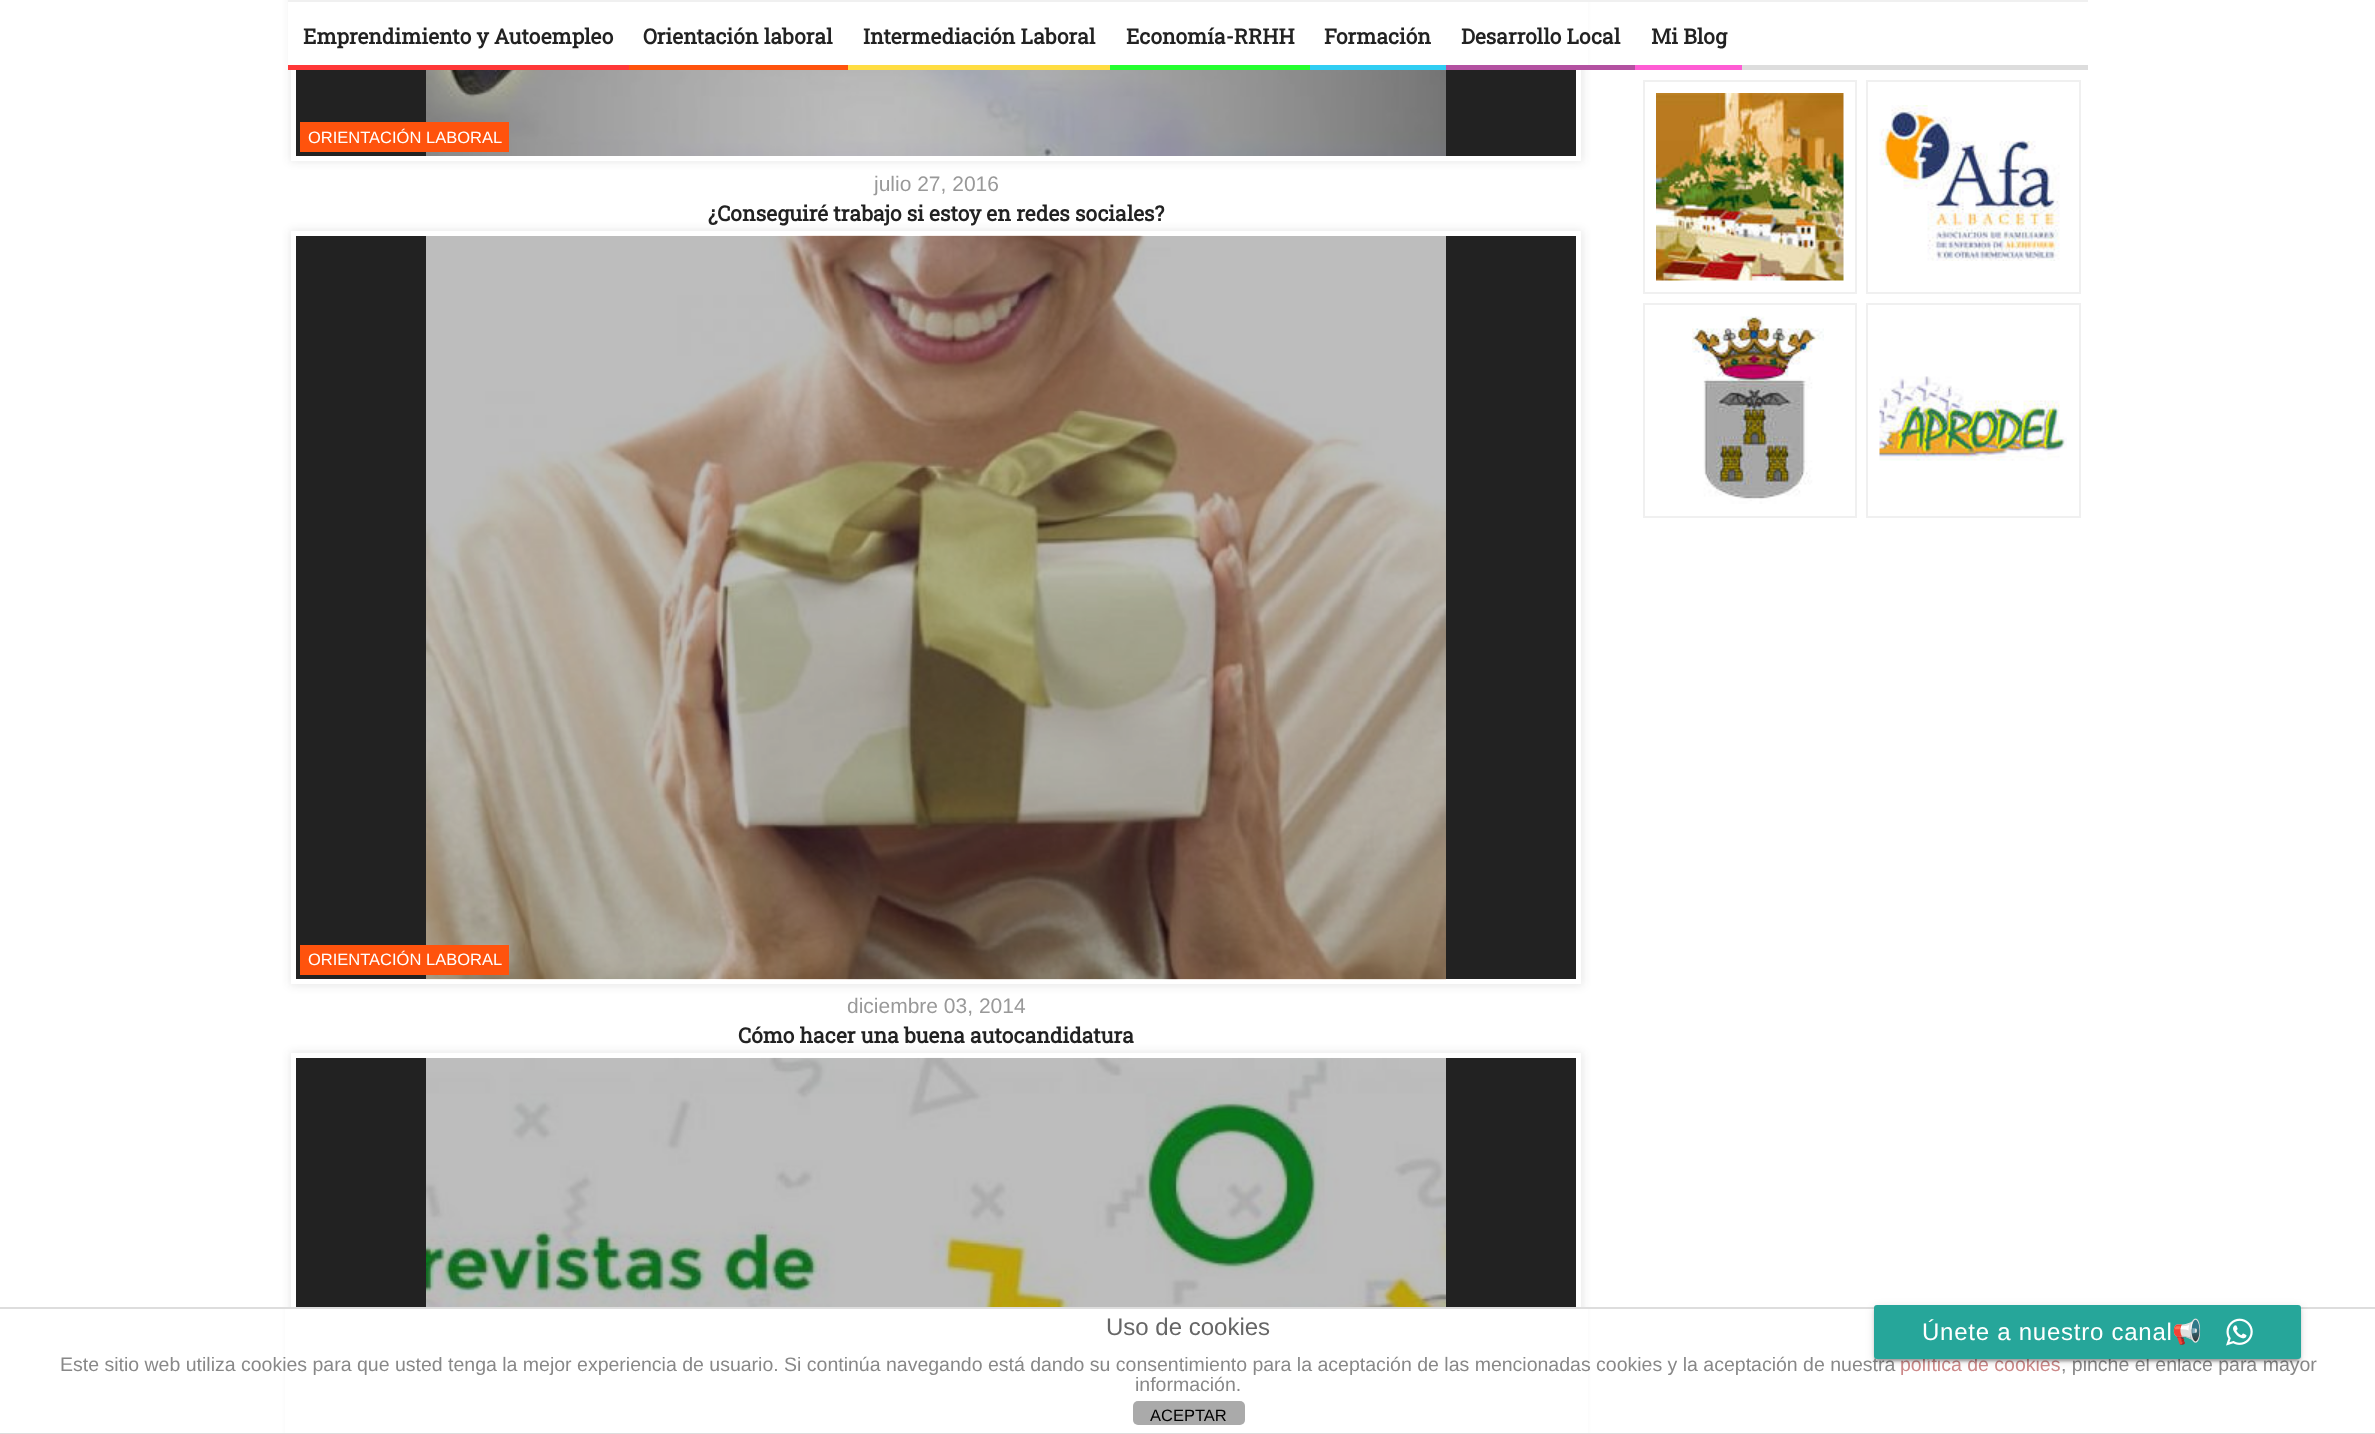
<svg xmlns="http://www.w3.org/2000/svg" width="2375" height="1434">
<rect width="100%" height="100%" fill="#fff"/>
<rect x="290" y="-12" width="1293" height="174" fill="#2222221a" filter="blur(4px)"/>
<rect x="296" y="70" width="1280" height="86" fill="#222"/>
<rect x="293.5" y="-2.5" width="1285" height="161" fill="none" stroke="#fff" stroke-width="5"/>
<rect x="288" y="2" width="1300" height="63" fill="#fff"/>
<rect x="288" width="1800" height="2" fill="#f0f0f0"/>
<rect x="1742" y="65" width="346" height="5" fill="#ddd"/>
<text x="303" y="44" style="font-family:Roboto Slab;font-size:21px;font-weight:bold;fill:#222">Emprendimiento y Autoempleo</text>
<rect x="288" y="65" width="341" height="5" fill="#ff3838"/>
<text x="643" y="44" style="font-family:Roboto Slab;font-size:21px;font-weight:bold;fill:#222">Orientación laboral</text>
<rect x="629" y="65" width="219" height="5" fill="#ff530d"/>
<text x="863" y="44" style="font-family:Roboto Slab;font-size:21px;font-weight:bold;fill:#222">Intermediación Laboral</text>
<rect x="848" y="65" width="262" height="5" fill="#ffdd42"/>
<text x="1126" y="44" style="font-family:Roboto Slab;font-size:21px;font-weight:bold;fill:#222">Economía-RRHH</text>
<rect x="1110" y="65" width="200" height="5" fill="#24ff2f"/>
<text x="1324" y="44" style="font-family:Roboto Slab;font-size:21px;font-weight:bold;fill:#222">Formación</text>
<rect x="1310" y="65" width="136" height="5" fill="#30cef3"/>
<text x="1461" y="44" style="font-family:Roboto Slab;font-size:21px;font-weight:bold;fill:#222">Desarrollo Local</text>
<rect x="1446" y="65" width="189" height="5" fill="#b351a1"/>
<text x="1651" y="44" style="font-family:Roboto Slab;font-size:21px;font-weight:bold;fill:#222">Mi Blog</text>
<rect x="1635" y="65" width="107" height="5" fill="#ff5cd4"/>
<image x="426" y="70" width="1020" height="86" href="media/1.png"/>
<rect x="300" y="122" width="209" height="30" fill="#ff530d"/>
<text x="308" y="143" style="font-family:Liberation Sans;font-size:16.5px;fill:#fff">ORIENTACIÓN LABORAL</text>
<text x="874" y="191" style="font-family:Liberation Sans;font-size:21px;fill:#999">julio 27, 2016</text>
<text x="708" y="221" style="font-family:Roboto Slab;font-size:21px;font-weight:bold;fill:#222">¿Conseguiré trabajo si estoy en redes sociales?</text>
<rect x="290" y="230" width="1293" height="756" fill="#2222221a" filter="blur(4px)"/>
<rect x="293.5" y="233.5" width="1285" height="748" fill="#222" stroke="#fff" stroke-width="5"/>
<image x="426" y="235" width="1020" height="745" href="media/2.png"/>
<rect x="300" y="945" width="209" height="30" fill="#ff530d"/>
<text x="308" y="965" style="font-family:Liberation Sans;font-size:16.5px;fill:#fff">ORIENTACIÓN LABORAL</text>
<text x="847" y="1013" style="font-family:Liberation Sans;font-size:21px;fill:#999">diciembre 03, 2014</text>
<text x="738" y="1043" style="font-family:Roboto Slab;font-size:21px;font-weight:bold;fill:#222">Cómo hacer una buena autocandidatura</text>
<rect x="290" y="1052" width="1293" height="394" fill="#2222221a" filter="blur(4px)"/>
<rect x="296" y="1058" width="1280" height="249" fill="#222"/>
<rect x="293.5" y="1055.5" width="1285" height="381" fill="none" stroke="#fff" stroke-width="5"/>
<image x="426" y="1057" width="1020" height="250" href="media/3.png"/>
<rect x="1644" y="81" width="212" height="212" fill="none" stroke="#f0f0f0" stroke-width="2"/>
<image x="1656" y="93" width="188" height="188" href="media/4.png"/>
<rect x="1867" y="81" width="213" height="212" fill="none" stroke="#f0f0f0" stroke-width="2"/>
<image x="1879" y="105" width="181" height="156" href="media/5.png"/>
<rect x="1644" y="304" width="212" height="213" fill="none" stroke="#f0f0f0" stroke-width="2"/>
<image x="1692" y="316" width="132" height="188" href="media/6.png"/>
<rect x="1867" y="304" width="213" height="213" fill="none" stroke="#f0f0f0" stroke-width="2"/>
<image x="1879" y="376" width="188" height="85" href="media/7.png"/>
<rect x="285" y="1309" width="1303" height="124" fill="#fff"/>
<rect y="1307" width="2375" height="2" fill="#ddd"/>
<rect y="1433" width="2375" height="1" fill="#ddd"/>
<text x="1106" y="1335" style="font-family:Liberation Sans;font-size:24px;fill:#666">Uso de cookies</text>
<text x="60" y="1371" style="font-family:Liberation Sans;font-size:19.5px;fill:#888">Este sitio web utiliza cookies para que usted tenga la mejor experiencia de usuario. Si continúa navegando está dando su consentimiento para la aceptación de las mencionadas cookies y la aceptación de nuestra</text>
<text x="1900" y="1371" style="font-family:Liberation Sans;font-size:19.5px;fill:#c88">política de cookies</text>
<text x="2061" y="1371" style="font-family:Liberation Sans;font-size:19.5px;fill:#888">, pinche el enlace para mayor</text>
<text x="1135" y="1391" style="font-family:Liberation Sans;font-size:19.5px;fill:#888">información.</text>
<rect x="1133" y="1401" width="112" height="24" rx="5" fill="#aaa"/>
<text x="1150" y="1421" style="font-family:Liberation Sans;font-size:16.5px;fill:#000">ACEPTAR</text>
<rect x="1877" y="1313" width="421" height="48" fill="#00000033" filter="blur(1px)"/>
<rect x="1874" y="1307" width="427" height="54" rx="3" fill="#0000001f" filter="blur(4px)"/>
<rect x="1874" y="1308" width="427" height="54" rx="3" fill="#00000024" filter="blur(1.5px)"/>
<rect x="1874" y="1305" width="427" height="54" rx="3" fill="#26a69a"/>
<text x="1922" y="1340" style="font-family:Liberation Sans;font-size:24px;letter-spacing:0.75px;fill:#fff">Únete a nuestro canal</text>
<text x="2172" y="1340" style="font-family:Noto Color Emoji;font-size:24px;letter-spacing:0.75px;fill:#fff">📢</text>
<image x="2226" y="1318" width="27" height="28" href="media/8.png"/>
</svg>
